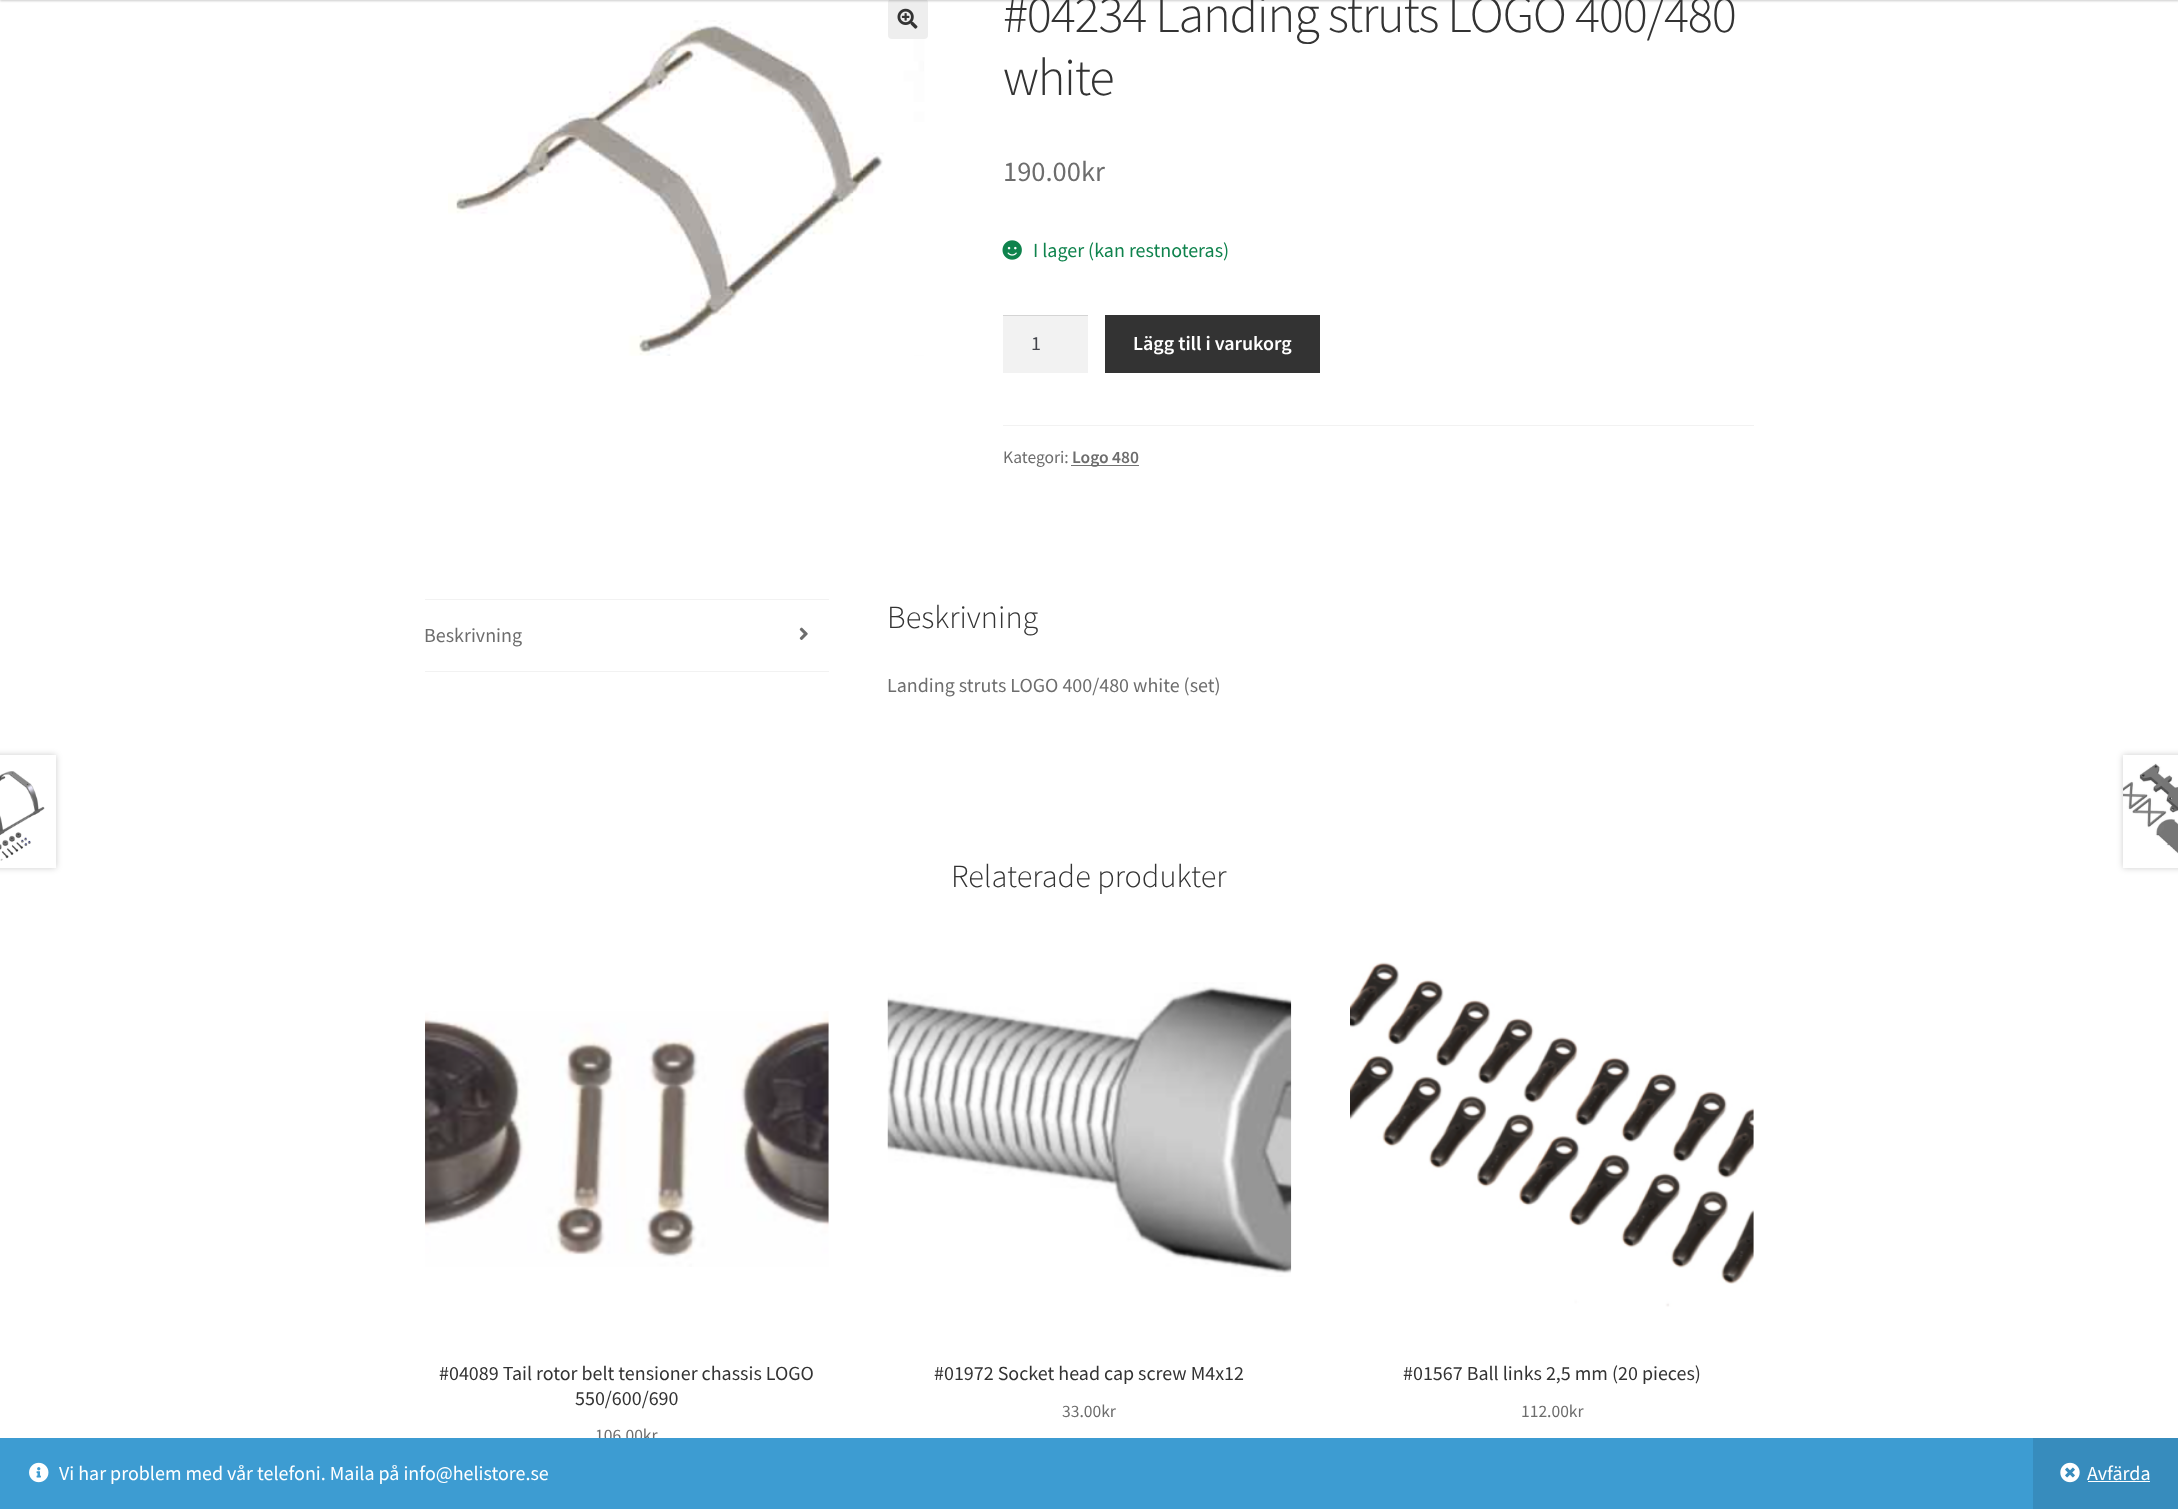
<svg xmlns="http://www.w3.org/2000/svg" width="2178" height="1509">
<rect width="100%" height="100%" fill="#fff"/>
<image x="448" y="1" width="477" height="355" href="media/2.png"/>
<rect x="888" y="-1" width="40" height="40" rx="4" fill="#eee"/>
<rect y="-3" width="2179" height="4" fill="#00000033" filter="blur(1px)"/>
<image x="897" y="8" width="21" height="21" href="media/1.png"/>
<text x="1003" y="32" style="font-family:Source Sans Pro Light;font-size:52.4px;font-weight:300;letter-spacing:-1.25px;fill:#333">#04234 Landing struts LOGO 400/480</text>
<text x="1003" y="95" style="font-family:Source Sans Pro Light;font-size:52.4px;font-weight:300;letter-spacing:-1.25px;fill:#333">white</text>
<text x="1003" y="181" style="font-family:Source Sans Pro;font-size:28.5px;fill:#6d6d6d">190.00kr</text>
<image x="1002" y="240" width="20" height="20" href="media/3.png"/>
<text x="1033" y="257" style="font-family:Source Sans Pro;font-size:20px;fill:#0f834d">I lager (kan restnoteras)</text>
<rect x="1003" y="316" width="85" height="57" fill="#f2f2f2"/>
<rect x="1003" y="315" width="85" height="1" fill="#d4d4d4"/>
<text x="1031" y="350" style="font-family:Source Sans Pro;font-size:20px;fill:#43454b">1</text>
<rect x="1105" y="315" width="215" height="58" fill="#333"/>
<text x="1133" y="350" style="font-family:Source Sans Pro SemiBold;font-size:20px;font-weight:600;fill:#fff">Lägg till i varukorg</text>
<rect x="1003" y="425" width="751" height="1" fill="#f2f2f2"/>
<text x="1003" y="463" style="font-family:Source Sans Pro;font-size:17.5px;fill:#6d6d6d">Kategori:</text>
<rect x="1071" y="465" width="68" height="1" fill="#727272"/>
<text x="1072" y="463" style="font-family:Source Sans Pro SemiBold;font-size:17.5px;font-weight:600;fill:#6d6d6d">Logo 480</text>
<rect x="425" y="599" width="404" height="1" fill="#f2f2f2"/>
<rect x="425" y="671" width="404" height="1" fill="#f2f2f2"/>
<text x="424" y="642" style="font-family:Source Sans Pro;font-size:20px;fill:#6d6d6d">Beskrivning</text>
<image x="799" y="627" width="9" height="13" href="media/4.png"/>
<text x="887" y="628" style="font-family:Source Sans Pro Light;font-size:32.25px;font-weight:300;fill:#333">Beskrivning</text>
<text x="887" y="692" style="font-family:Source Sans Pro;font-size:20px;fill:#6d6d6d">Landing struts LOGO 400/480 white (set)</text>
<rect x="-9" y="755" width="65" height="113" fill="#00000033" filter="blur(3px)"/>
<rect y="755" width="56" height="113" fill="#fff"/>
<image x="0" y="771" width="45" height="90" href="media/5.png"/>
<rect x="2123" y="755" width="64" height="113" fill="#00000033" filter="blur(3px)"/>
<rect x="2123" y="755" width="55" height="113" fill="#fff"/>
<image x="2123" y="763" width="55" height="91" href="media/6.png"/>
<text x="951" y="887" style="font-family:Source Sans Pro Light;font-size:32.25px;font-weight:300;fill:#333">Relaterade produkter</text>
<image x="425" y="1011" width="404" height="256" href="media/7.png"/>
<text x="439" y="1380" style="font-family:Source Sans Pro;font-size:20px;fill:#333">#04089 Tail rotor belt tensioner chassis LOGO</text>
<text x="575" y="1405" style="font-family:Source Sans Pro;font-size:20px;fill:#333">550/600/690</text>
<text x="595" y="1441" style="font-family:Source Sans Pro;font-size:17.5px;fill:#6d6d6d">106.00kr</text>
<image x="887" y="982" width="405" height="295" href="media/8.png"/>
<text x="934" y="1380" style="font-family:Source Sans Pro;font-size:20px;fill:#333">#01972 Socket head cap screw M4x12</text>
<text x="1062" y="1417" style="font-family:Source Sans Pro;font-size:17.5px;fill:#6d6d6d">33.00kr</text>
<image x="1350" y="962" width="404" height="345" href="media/9.png"/>
<text x="1403" y="1380" style="font-family:Source Sans Pro;font-size:20px;fill:#333">#01567 Ball links 2,5 mm (20 pieces)</text>
<text x="1521" y="1417" style="font-family:Source Sans Pro;font-size:17.5px;fill:#6d6d6d">112.00kr</text>
<rect y="1438" width="2033" height="71" fill="#3d9cd2"/>
<image x="29" y="1462" width="20" height="21" href="media/10.png"/>
<text x="59" y="1480" style="font-family:Source Sans Pro;font-size:20px;fill:#fff">Vi har problem med vår telefoni. Maila på info@helistore.se</text>
<rect x="2033" y="1438" width="145" height="71" fill="#378cbd"/>
<image x="2060" y="1462" width="20" height="21" href="media/11.png"/>
<text x="2087" y="1480" style="font-family:Source Sans Pro;font-size:20px;fill:#fff">Avfärda</text>
<rect x="2088" y="1481" width="62" height="1" fill="#fff"/>
</svg>
